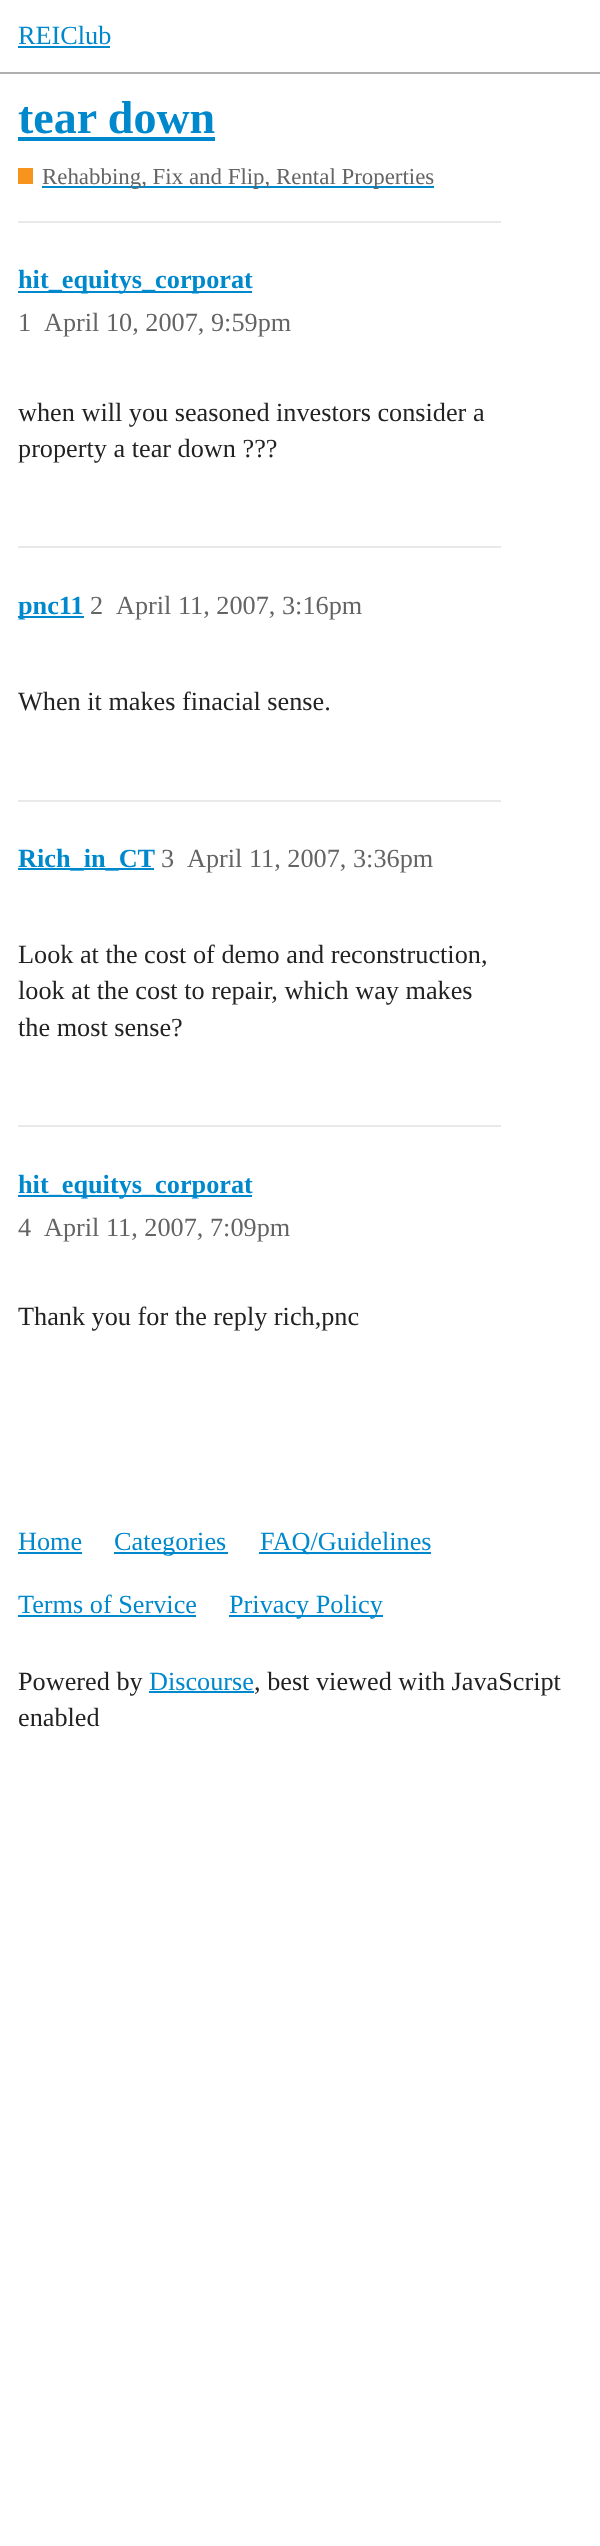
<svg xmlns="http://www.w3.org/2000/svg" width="600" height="2546">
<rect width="100%" height="100%" fill="#fff"/>
<rect y="72" width="600" height="2" fill="#afafaf"/>
<text x="18" y="44" style="font-family:Liberation Serif;font-size:26.25px;fill:#08c">REIClub</text>
<rect x="18" y="46" width="92" height="2" fill="#08c"/>
<text x="18" y="133" style="font-family:Liberation Serif;font-size:46px;font-weight:bold;fill:#08c">tear down</text>
<rect x="18" y="137" width="197" height="4" fill="#08c"/>
<rect x="18" y="168" width="15" height="16" fill="#f7941d"/>
<rect x="42" y="186" width="392" height="2" fill="#08c"/>
<text x="42" y="184" style="font-family:Liberation Serif;font-size:22.9px;fill:#646464">Rehabbing, Fix and Flip, Rental Properties</text>
<rect x="18" y="221" width="483" height="2" fill="#e9e9e9"/>
<rect x="18" y="291" width="234" height="2" fill="#08c"/>
<text x="18" y="288" style="font-family:Liberation Serif;font-size:26.25px;font-weight:bold;fill:#08c">hit_equitys_corporat</text>
<text x="18" y="331" style="font-family:Liberation Serif;font-size:26.25px;fill:#646464">1</text>
<text x="44" y="331" style="font-family:Liberation Serif;font-size:26.25px;fill:#646464">April 10, 2007, 9:59pm</text>
<text x="18" y="421" style="font-family:Liberation Serif;font-size:26.25px;fill:#222">when will you seasoned investors consider a</text>
<text x="18" y="457" style="font-family:Liberation Serif;font-size:26.25px;fill:#222">property a tear down ???</text>
<rect x="18" y="546" width="483" height="2" fill="#e9e9e9"/>
<rect x="18" y="616" width="66" height="2" fill="#08c"/>
<text x="18" y="614" style="font-family:Liberation Serif;font-size:26.25px;font-weight:bold;fill:#08c">pnc11</text>
<text x="90" y="614" style="font-family:Liberation Serif;font-size:26.25px;fill:#646464">2</text>
<text x="116" y="614" style="font-family:Liberation Serif;font-size:26.25px;fill:#646464">April 11, 2007, 3:16pm</text>
<text x="18" y="710" style="font-family:Liberation Serif;font-size:26.25px;fill:#222">When it makes finacial sense.</text>
<rect x="18" y="800" width="483" height="2" fill="#e9e9e9"/>
<rect x="18" y="868" width="136" height="2" fill="#08c"/>
<text x="18" y="867" style="font-family:Liberation Serif;font-size:26.25px;font-weight:bold;fill:#08c">Rich_in_CT</text>
<text x="161" y="867" style="font-family:Liberation Serif;font-size:26.25px;fill:#646464">3</text>
<text x="187" y="867" style="font-family:Liberation Serif;font-size:26.25px;fill:#646464">April 11, 2007, 3:36pm</text>
<text x="18" y="963" style="font-family:Liberation Serif;font-size:26.25px;fill:#222">Look at the cost of demo and reconstruction,</text>
<text x="18" y="999" style="font-family:Liberation Serif;font-size:26.25px;fill:#222">look at the cost to repair, which way makes</text>
<text x="18" y="1036" style="font-family:Liberation Serif;font-size:26.25px;fill:#222">the most sense?</text>
<rect x="18" y="1125" width="483" height="2" fill="#e9e9e9"/>
<rect x="18" y="1195" width="234" height="2" fill="#08c"/>
<text x="18" y="1193" style="font-family:Liberation Serif;font-size:26.25px;font-weight:bold;fill:#08c">hit_equitys_corporat</text>
<text x="18" y="1236" style="font-family:Liberation Serif;font-size:26.25px;fill:#646464">4</text>
<text x="44" y="1236" style="font-family:Liberation Serif;font-size:26.25px;fill:#646464">April 11, 2007, 7:09pm</text>
<text x="18" y="1325" style="font-family:Liberation Serif;font-size:26.25px;fill:#222">Thank you for the reply rich,pnc</text>
<text x="18" y="1550" style="font-family:Liberation Serif;font-size:26.25px;fill:#08c">Home</text>
<rect x="18" y="1552" width="64" height="2" fill="#08c"/>
<rect x="114" y="1552" width="114" height="2" fill="#08c"/>
<text x="114" y="1550" style="font-family:Liberation Serif;font-size:26.25px;fill:#08c">Categories</text>
<rect x="259" y="1552" width="172" height="2" fill="#08c"/>
<text x="260" y="1550" style="font-family:Liberation Serif;font-size:26.25px;fill:#08c">FAQ/Guidelines</text>
<text x="18" y="1613" style="font-family:Liberation Serif;font-size:26.25px;fill:#08c">Terms of Service</text>
<rect x="18" y="1615" width="178" height="2" fill="#08c"/>
<rect x="229" y="1615" width="154" height="2" fill="#08c"/>
<text x="229" y="1613" style="font-family:Liberation Serif;font-size:26.25px;fill:#08c">Privacy Policy</text>
<text x="18" y="1690" style="font-family:Liberation Serif;font-size:26.25px;fill:#222">Powered by</text>
<text x="149" y="1690" style="font-family:Liberation Serif;font-size:26.25px;fill:#08c">Discourse</text>
<rect x="149" y="1691" width="105" height="2" fill="#08c"/>
<text x="254" y="1690" style="font-family:Liberation Serif;font-size:26.25px;fill:#222">, best viewed with JavaScript</text>
<text x="18" y="1726" style="font-family:Liberation Serif;font-size:26.25px;fill:#222">enabled</text>
</svg>
